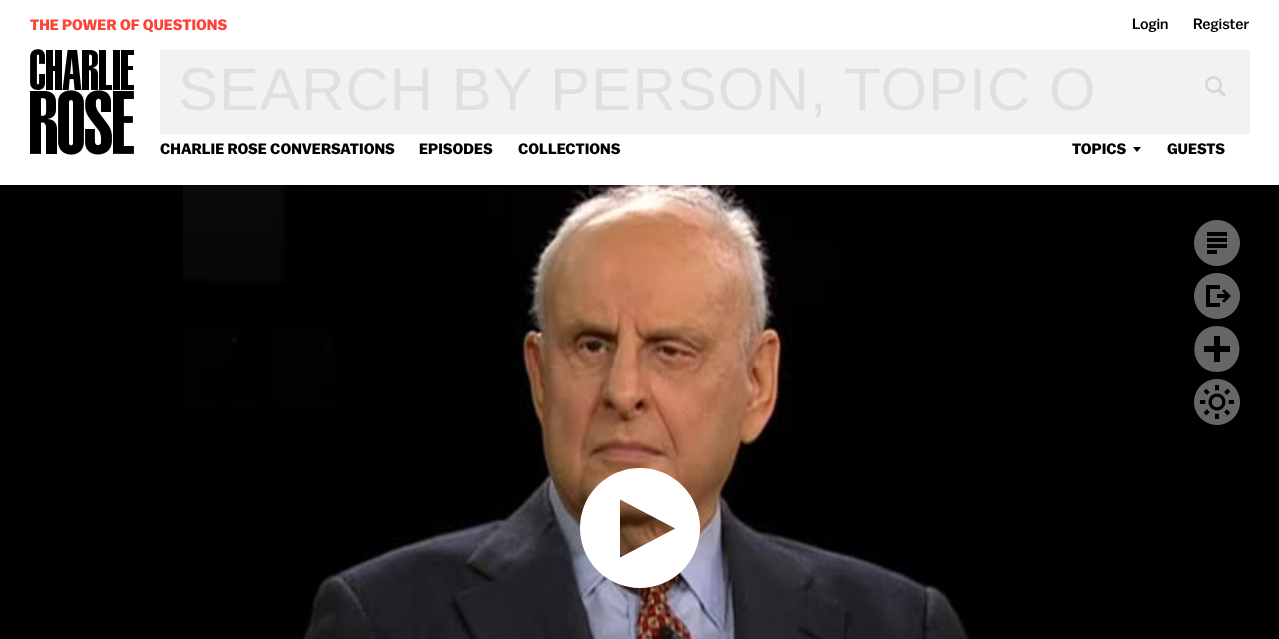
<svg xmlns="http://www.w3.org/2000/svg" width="1279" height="639">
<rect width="100%" height="100%" fill="#fff"/>
<text x="30" y="30" style="font-family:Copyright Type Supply;font-size:15px;font-weight:600;fill:#ff4237">THE POWER OF QUESTIONS</text>
<text x="1132" y="29" style="font-family:Copyright Type Supply;font-size:15px;font-weight:500;fill:#000">Login</text>
<text x="1193" y="29" style="font-family:Copyright Type Supply;font-size:15px;font-weight:500;fill:#000">Register</text>
<text x="160" y="154" style="font-family:Copyright Type Supply;font-size:15px;font-weight:600;fill:#000">CHARLIE ROSE CONVERSATIONS</text>
<text x="419" y="154" style="font-family:Copyright Type Supply;font-size:15px;font-weight:600;fill:#000">EPISODES</text>
<text x="518" y="154" style="font-family:Copyright Type Supply;font-size:15px;font-weight:600;fill:#000">COLLECTIONS</text>
<text x="1072" y="154" style="font-family:Copyright Type Supply;font-size:15px;font-weight:600;fill:#000">TOPICS</text>
<path d="M1133 147h8l-4 5z" fill="#000"/>
<text x="1167" y="154" style="font-family:Copyright Type Supply;font-size:15px;font-weight:600;fill:#000">GUESTS</text>
<image x="30" y="49" width="104" height="106" href="media/1.png"/>
<rect x="160" y="50" width="1090" height="84" fill="#f2f2f2"/>
<text x="178" y="110" style="font-family:Liberation Sans;font-size:60px;letter-spacing:1px;fill:#e0e0e0">SEARCH BY PERSON, TOPIC O</text>
<image x="1205" y="76" width="21" height="21" href="media/2.png"/>
<rect y="185" width="1279" height="454" fill="#000"/>
<image x="183" y="185" width="789" height="454" href="media/3.png"/>
<image x="1194" y="220" width="46" height="46" href="media/4.png"/>
<image x="1194" y="273" width="46" height="46" href="media/5.png"/>
<path d="M1217 326c-30 0-30 46 0 46c30 0 30-46 0-46zm13 26h-10v10h-6v-10h-10v-6h10v-10h6v10h10z" fill="#666"/>
<image x="1194" y="379" width="46" height="46" href="media/6.png"/>
</svg>
